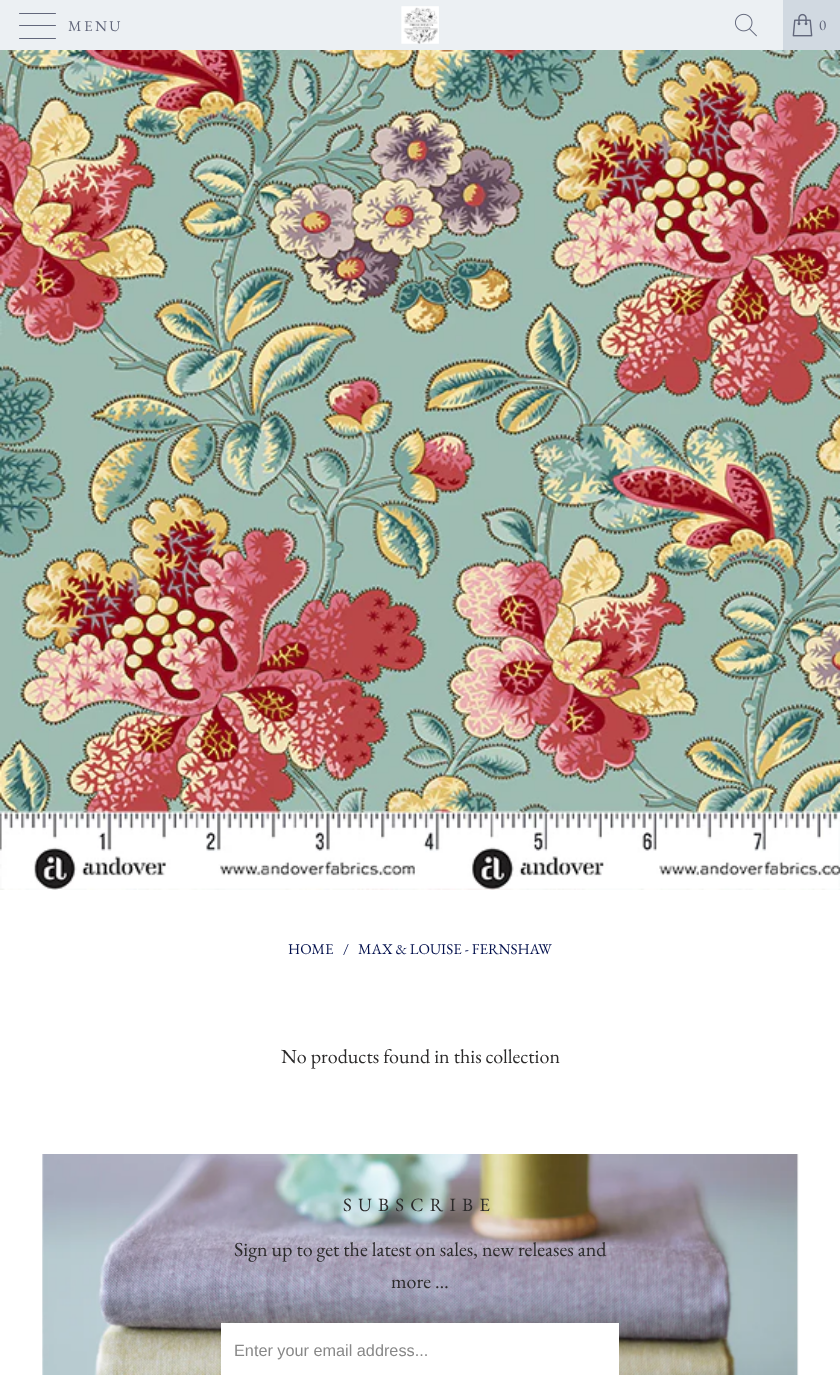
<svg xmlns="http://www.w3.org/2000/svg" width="840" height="1375">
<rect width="100%" height="100%" fill="#fff"/>
<rect width="783" height="50" fill="#ecf0f3"/>
<rect x="19" y="13" width="37" height="1" rx="0.5" fill="#62677b"/>
<rect x="19" y="25" width="37" height="1" rx="0.5" fill="#62677b"/>
<rect x="19" y="38" width="37" height="1" rx="0.5" fill="#62677b"/>
<text x="68" y="31" style="font-family:EB Garamond;font-size:15px;letter-spacing:2.5px;fill:#62677b">MENU</text>
<image x="401" y="6" width="38" height="38" href="media/1.png"/>
<image x="735" y="13" width="22" height="24" href="media/2.png"/>
<rect x="783" width="57" height="50" fill="#d1d9e1"/>
<image x="792" y="13" width="21" height="24" href="media/3.png"/>
<text x="819" y="30" style="font-family:EB Garamond;font-size:15px;letter-spacing:1px;fill:#62677b">0</text>
<image x="0" y="50" width="840" height="840" href="media/4.png"/>
<text x="288" y="954" style="font-family:EB Garamond;font-size:15px;fill:#020f4c">HOME</text>
<text x="343" y="954" style="font-family:EB Garamond;font-size:15px;fill:#020f4c">/</text>
<text x="358" y="954" style="font-family:EB Garamond;font-size:15px;fill:#020f4c">MAX &amp; LOUISE - FERNSHAW</text>
<text x="281" y="1063" style="font-family:EB Garamond;font-size:20px;fill:#2b2a2a">No products found in this collection</text>
<rect x="43" y="1154" width="755" height="221" fill="#f2f1f1"/>
<image x="42" y="1154" width="757" height="221" href="media/5.png"/>
<text x="343" y="1211" style="font-family:EB Garamond;font-size:18.75px;letter-spacing:6.25px;fill:#2b2a2a">SUBSCRIBE</text>
<text x="234" y="1256" style="font-family:EB Garamond;font-size:20px;fill:#2b2a2a">Sign up to get the latest on sales, new releases and</text>
<text x="391" y="1288" style="font-family:EB Garamond;font-size:20px;fill:#2b2a2a">more …</text>
<rect x="221" y="1323" width="398" height="52" fill="#fff"/>
<text x="234" y="1356" style="font-family:Liberation Sans;font-size:16.25px;fill:#888">Enter your email address...</text>
</svg>
